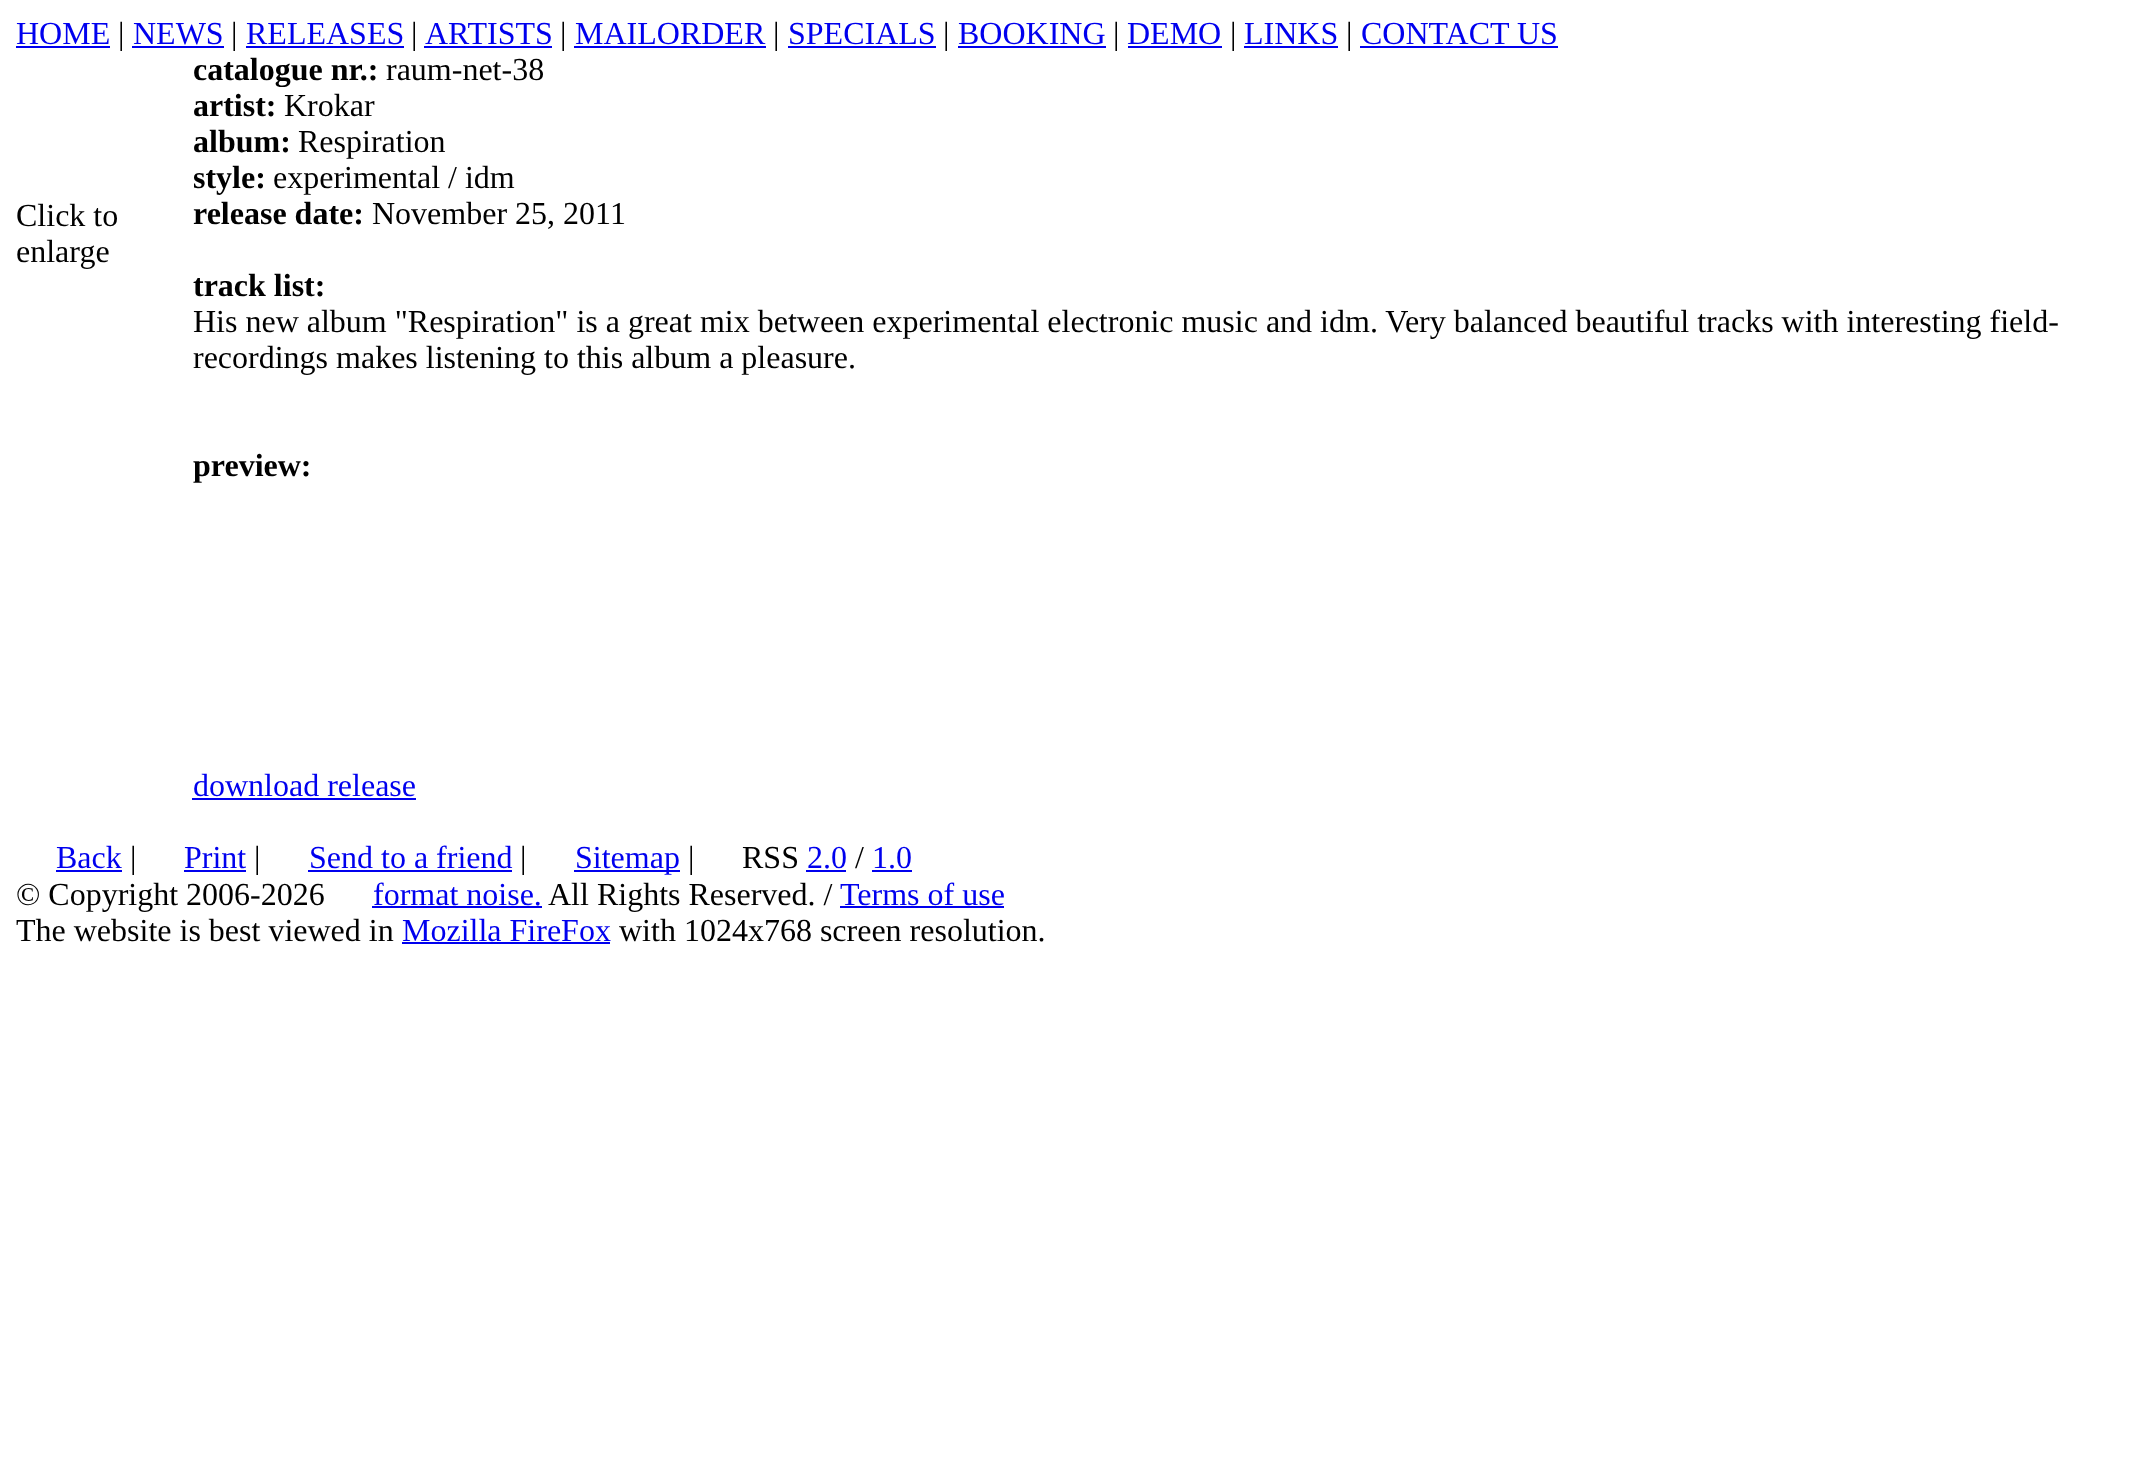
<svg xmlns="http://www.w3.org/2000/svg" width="2156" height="1483">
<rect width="100%" height="100%" fill="#fff"/>
<text x="16" y="44" style="font-family:Liberation Serif;font-size:32px;fill:#00e">HOME</text>
<rect x="16" y="46" width="94" height="2" fill="#00e"/>
<text x="118" y="44" style="font-family:Liberation Serif;font-size:32px;fill:#000">|</text>
<text x="133" y="44" style="font-family:Liberation Serif;font-size:32px;fill:#00e">NEWS</text>
<rect x="132" y="46" width="92" height="2" fill="#00e"/>
<text x="231" y="44" style="font-family:Liberation Serif;font-size:32px;fill:#000">|</text>
<text x="246" y="44" style="font-family:Liberation Serif;font-size:32px;fill:#00e">RELEASES</text>
<rect x="246" y="46" width="158" height="2" fill="#00e"/>
<text x="411" y="44" style="font-family:Liberation Serif;font-size:32px;fill:#000">|</text>
<text x="425" y="44" style="font-family:Liberation Serif;font-size:32px;fill:#00e">ARTISTS</text>
<rect x="424" y="46" width="128" height="2" fill="#00e"/>
<text x="560" y="44" style="font-family:Liberation Serif;font-size:32px;fill:#000">|</text>
<text x="575" y="44" style="font-family:Liberation Serif;font-size:32px;fill:#00e">MAILORDER</text>
<rect x="574" y="46" width="192" height="2" fill="#00e"/>
<text x="773" y="44" style="font-family:Liberation Serif;font-size:32px;fill:#000">|</text>
<text x="788" y="44" style="font-family:Liberation Serif;font-size:32px;fill:#00e">SPECIALS</text>
<rect x="788" y="46" width="148" height="2" fill="#00e"/>
<text x="943" y="44" style="font-family:Liberation Serif;font-size:32px;fill:#000">|</text>
<text x="958" y="44" style="font-family:Liberation Serif;font-size:32px;fill:#00e">BOOKING</text>
<rect x="958" y="46" width="148" height="2" fill="#00e"/>
<text x="1113" y="44" style="font-family:Liberation Serif;font-size:32px;fill:#000">|</text>
<text x="1127" y="44" style="font-family:Liberation Serif;font-size:32px;fill:#00e">DEMO</text>
<rect x="1128" y="46" width="94" height="2" fill="#00e"/>
<text x="1230" y="44" style="font-family:Liberation Serif;font-size:32px;fill:#000">|</text>
<text x="1244" y="44" style="font-family:Liberation Serif;font-size:32px;fill:#00e">LINKS</text>
<rect x="1244" y="46" width="94" height="2" fill="#00e"/>
<text x="1346" y="44" style="font-family:Liberation Serif;font-size:32px;fill:#000">|</text>
<text x="1361" y="44" style="font-family:Liberation Serif;font-size:32px;fill:#00e">CONTACT US</text>
<rect x="1360" y="46" width="198" height="2" fill="#00e"/>
<text x="193" y="80" style="font-family:Liberation Serif;font-size:32px;font-weight:bold;fill:#000">catalogue nr.:</text>
<text x="386" y="80" style="font-family:Liberation Serif;font-size:32px;fill:#000">raum-net-38</text>
<text x="16" y="226" style="font-family:Liberation Serif;font-size:32px;fill:#000">Click to</text>
<text x="16" y="262" style="font-family:Liberation Serif;font-size:32px;fill:#000">enlarge</text>
<text x="193" y="116" style="font-family:Liberation Serif;font-size:32px;font-weight:bold;fill:#000">artist:</text>
<text x="284" y="116" style="font-family:Liberation Serif;font-size:32px;fill:#000">Krokar</text>
<text x="193" y="152" style="font-family:Liberation Serif;font-size:32px;font-weight:bold;fill:#000">album:</text>
<text x="298" y="152" style="font-family:Liberation Serif;font-size:32px;fill:#000">Respiration</text>
<text x="193" y="188" style="font-family:Liberation Serif;font-size:32px;font-weight:bold;fill:#000">style:</text>
<text x="273" y="188" style="font-family:Liberation Serif;font-size:32px;fill:#000">experimental / idm</text>
<text x="193" y="224" style="font-family:Liberation Serif;font-size:32px;font-weight:bold;fill:#000">release date:</text>
<text x="372" y="224" style="font-family:Liberation Serif;font-size:32px;fill:#000">November 25, 2011</text>
<text x="193" y="296" style="font-family:Liberation Serif;font-size:32px;font-weight:bold;fill:#000">track list:</text>
<text x="193" y="332" style="font-family:Liberation Serif;font-size:32px;fill:#000">His new album "Respiration" is a great mix between experimental electronic music and idm. Very balanced beautiful tracks with interesting field-</text>
<text x="193" y="368" style="font-family:Liberation Serif;font-size:32px;fill:#000">recordings makes listening to this album a pleasure.</text>
<text x="193" y="476" style="font-family:Liberation Serif;font-size:32px;font-weight:bold;fill:#000">preview:</text>
<text x="193" y="796" style="font-family:Liberation Serif;font-size:32px;fill:#00e">download release</text>
<rect x="192" y="798" width="224" height="2" fill="#00e"/>
<text x="56" y="868" style="font-family:Liberation Serif;font-size:32px;fill:#00e">Back</text>
<rect x="56" y="870" width="66" height="2" fill="#00e"/>
<text x="130" y="868" style="font-family:Liberation Serif;font-size:32px;fill:#000">|</text>
<text x="184" y="868" style="font-family:Liberation Serif;font-size:32px;fill:#00e">Print</text>
<rect x="184" y="870" width="62" height="2" fill="#00e"/>
<text x="254" y="868" style="font-family:Liberation Serif;font-size:32px;fill:#000">|</text>
<text x="309" y="868" style="font-family:Liberation Serif;font-size:32px;fill:#00e">Send to a friend</text>
<rect x="308" y="870" width="204" height="2" fill="#00e"/>
<text x="520" y="868" style="font-family:Liberation Serif;font-size:32px;fill:#000">|</text>
<rect x="574" y="870" width="106" height="2" fill="#00e"/>
<text x="575" y="868" style="font-family:Liberation Serif;font-size:32px;fill:#00e">Sitemap</text>
<text x="688" y="868" style="font-family:Liberation Serif;font-size:32px;fill:#000">|</text>
<text x="742" y="868" style="font-family:Liberation Serif;font-size:32px;fill:#000">RSS</text>
<text x="807" y="868" style="font-family:Liberation Serif;font-size:32px;fill:#00e">2.0</text>
<rect x="806" y="870" width="40" height="2" fill="#00e"/>
<text x="855" y="868" style="font-family:Liberation Serif;font-size:32px;fill:#000">/</text>
<text x="872" y="868" style="font-family:Liberation Serif;font-size:32px;fill:#00e">1.0</text>
<rect x="872" y="870" width="40" height="2" fill="#00e"/>
<text x="16" y="905" style="font-family:Liberation Serif;font-size:32px;fill:#000">© Copyright 2006-2026</text>
<text x="373" y="905" style="font-family:Liberation Serif;font-size:32px;fill:#00e">format noise.</text>
<rect x="372" y="906" width="170" height="2" fill="#00e"/>
<text x="548" y="905" style="font-family:Liberation Serif;font-size:32px;fill:#000">All Rights Reserved. /</text>
<text x="840" y="905" style="font-family:Liberation Serif;font-size:32px;fill:#00e">Terms of use</text>
<rect x="840" y="906" width="164" height="2" fill="#00e"/>
<text x="16" y="941" style="font-family:Liberation Serif;font-size:32px;fill:#000">The website is best viewed in</text>
<text x="402" y="941" style="font-family:Liberation Serif;font-size:32px;fill:#00e">Mozilla FireFox</text>
<rect x="402" y="942" width="208" height="2" fill="#00e"/>
<text x="619" y="941" style="font-family:Liberation Serif;font-size:32px;fill:#000">with 1024x768 screen resolution.</text>
</svg>
